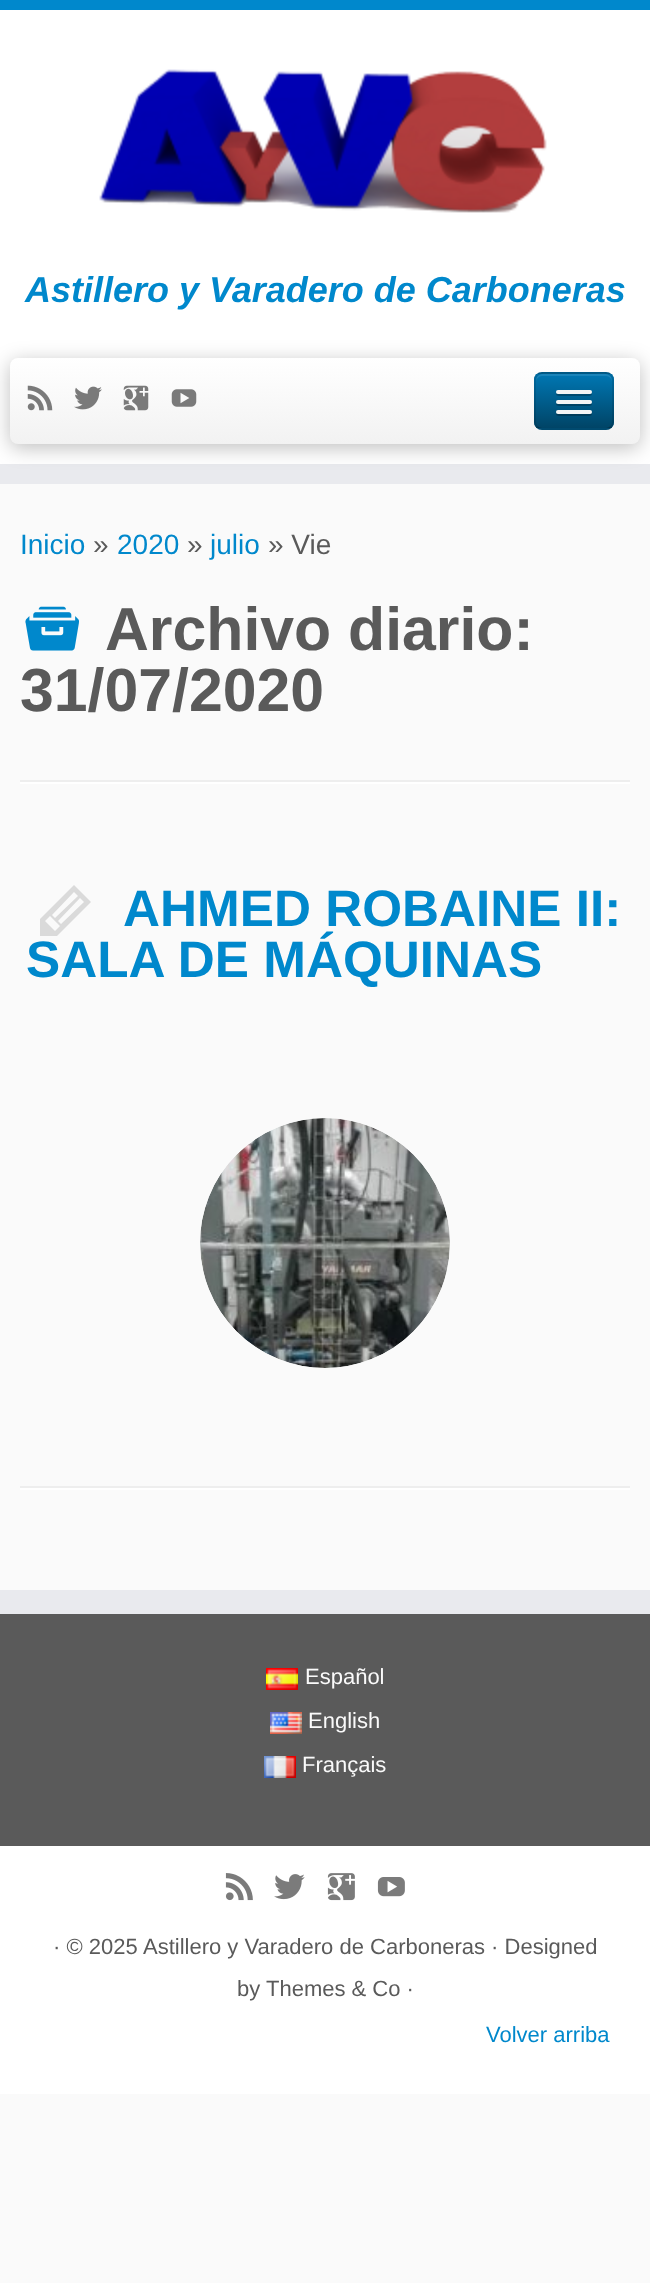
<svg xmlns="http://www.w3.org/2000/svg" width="650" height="2283">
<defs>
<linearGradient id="g1" gradientUnits="userSpaceOnUse" x1="325" y1="358" x2="325" y2="444"><stop offset="0" stop-color="#fff"/><stop offset="1" stop-color="#f2f2f2"/></linearGradient>
<clipPath id="clip1"><rect x="534" y="372" width="80" height="58" rx="8"/></clipPath>
<linearGradient id="g2" gradientUnits="userSpaceOnUse" x1="574" y1="374" x2="574" y2="428"><stop offset="0" stop-color="#0077b3"/><stop offset="1" stop-color="#046"/></linearGradient>
<clipPath id="clip2"><rect x="126" y="1066" width="400" height="360"/></clipPath>
</defs>
<rect width="100%" height="100%" fill="#fafafa"/>
<rect y="10" width="650" height="454" fill="#fff"/>
<rect width="650" height="10" fill="#08c"/>
<rect y="464" width="650" height="20" fill="#e9eaee"/>
<image x="99" y="69" width="448" height="144" href="media/1.png"/>
<text x="25" y="302" style="font-family:Liberation Sans;font-size:36px;font-weight:bold;font-style:italic;fill:#08c">Astillero y Varadero de Carboneras</text>
<rect x="10" y="362" width="630" height="86" rx="8" fill="#00000040" filter="blur(10px)"/>
<rect x="10" y="358" width="630" height="86" rx="8" fill="url(#g1)"/>
<image x="27" y="385" width="26" height="26" href="media/2.png"/>
<image x="74" y="386" width="28" height="24" href="media/3.png"/>
<image x="123" y="385" width="26" height="26" href="media/4.png"/>
<image x="171" y="389" width="26" height="18" href="media/5.png"/>
<rect x="534" y="372" width="80" height="58" rx="8" fill="#006394"/>
<g clip-path="url(#clip1)">
<rect x="534" y="374" width="80" height="54" fill="url(#g2)"/>
</g>
<path d="M542 376h64c3 0 6 3 6 6c0-10-8-8-17-8h-42c-9 0-17-2-17 8c0-3 3-6 6-6z" fill="#ffffff1a"/>
<path d="M611 427c-1.5 1.5-3 2-5 2h-64c-2 0-3.5-.5-5-2" fill="none" stroke="#00000040" stroke-width="2"/>
<path d="M537 427c-1.5-1.5-2-3-2-5v-42c0-2 .5-3.5 2-5c1.5-1.5 3-2 5-2h64c2 0 3.5 .5 5 2c1.5 1.5 2 3 2 5v42c0 2-.5 3.5-2 5" fill="none" stroke="#0000001a" stroke-width="2"/>
<path d="M556.5 393c-2.5 4 6.5 3 7 3h21c.5 0 9.5 1 7-3c0 .5-1 1-1.5 1h-32c-.5 0-1.5-.5-1.5-1z" fill="#00000040"/>
<rect x="556" y="390" width="36" height="4" rx="2" fill="#f5f5f5"/>
<path d="M556.5 403c-2.5 4 6.5 3 7 3h21c.5 0 9.5 1 7-3c0 .5-1 1-1.5 1h-32c-.5 0-1.5-.5-1.5-1z" fill="#00000040"/>
<rect x="556" y="400" width="36" height="4" rx="2" fill="#f5f5f5"/>
<path d="M556.5 413c-2.5 4 6.5 3 7 3h21c.5 0 9.5 1 7-3c0 .5-1 1-1.5 1h-32c-.5 0-1.5-.5-1.5-1z" fill="#00000040"/>
<rect x="556" y="410" width="36" height="4" rx="2" fill="#f5f5f5"/>
<text x="20" y="554" style="font-family:Liberation Sans;font-size:28px;fill:#08c">Inicio</text>
<text x="93" y="554" style="font-family:Liberation Sans;font-size:28px;fill:#5a5a5a">»</text>
<text x="117" y="554" style="font-family:Liberation Sans;font-size:28px;fill:#08c">2020</text>
<text x="187" y="554" style="font-family:Liberation Sans;font-size:28px;fill:#5a5a5a">»</text>
<text x="210" y="554" style="font-family:Liberation Sans;font-size:28px;fill:#08c">julio</text>
<text x="268" y="554" style="font-family:Liberation Sans;font-size:28px;fill:#5a5a5a">» Vie</text>
<image x="25" y="606" width="54" height="45" href="media/6.png"/>
<text x="105" y="650" style="font-family:Liberation Sans;font-size:60.75px;font-weight:bold;fill:#5a5a5a">Archivo diario:</text>
<text x="20" y="711" style="font-family:Liberation Sans;font-size:60.75px;font-weight:bold;fill:#5a5a5a">31/07/2020</text>
<rect x="20" y="780" width="610" height="2" fill="#eee"/>
<rect x="20" y="782" width="610" height="2" fill="#fff"/>
<text x="26" y="977" style="font-family:Liberation Sans;font-size:51.25px;font-weight:bold;fill:#08c">SALA DE MÁQUINAS</text>
<path d="M40 936v-17l34-34l17 17l-34 34zm5-15l10 10l5-5l-10-10zm7-6l3 3l23-22l-4-4zm6 6l3 3l23-22l-4-4z" fill="#dadada"/>
<text x="123" y="926" style="font-family:Liberation Sans;font-size:51.25px;font-weight:bold;fill:#08c">AHMED ROBAINE II:</text>
<image x="200" y="1118" width="250" height="250" href="media/7.png"/>
<rect x="20" y="1486" width="610" height="2" fill="#eee"/>
<rect x="20" y="1488" width="610" height="2" fill="#fff"/>
<g clip-path="url(#clip2)">
<circle cx="325" cy="1243" r="219" fill="none" stroke="#fafafa" stroke-width="188"/>
<circle cx="325" cy="1243" r="219" fill="none" stroke="#fafafa" stroke-width="188"/>
</g>
<rect y="1614" width="650" height="232" fill="#5a5a5a"/>
<rect y="1590" width="650" height="24" fill="#e9eaee"/>
<image x="266" y="1668" width="32" height="22" href="media/8.png"/>
<text x="305" y="1684" style="font-family:Liberation Sans;font-size:22px;fill:#fafafa">Español</text>
<image x="270" y="1712" width="32" height="22" href="media/9.png"/>
<text x="308" y="1728" style="font-family:Liberation Sans;font-size:22px;fill:#fafafa">English</text>
<image x="264" y="1756" width="32" height="22" href="media/10.png"/>
<text x="302" y="1772" style="font-family:Liberation Sans;font-size:22px;fill:#fafafa">Français</text>
<rect y="1846" width="650" height="248" fill="#fff"/>
<image x="225" y="1873" width="28" height="28" href="media/11.png"/>
<image x="274" y="1874" width="31" height="26" href="media/12.png"/>
<image x="327" y="1873" width="28" height="28" href="media/13.png"/>
<image x="377" y="1877" width="28" height="20" href="media/14.png"/>
<text x="53" y="1954" style="font-family:Liberation Sans;font-size:22px;fill:#5a5a5a">· © 2025</text>
<text x="143" y="1954" style="font-family:Liberation Sans;font-size:22px;fill:#5a5a5a">Astillero y Varadero de Carboneras · Designed</text>
<text x="237" y="1996" style="font-family:Liberation Sans;font-size:22px;fill:#5a5a5a">by</text>
<text x="266" y="1996" style="font-family:Liberation Sans;font-size:22px;fill:#5a5a5a">Themes &amp; Co ·</text>
<text x="486" y="2042" style="font-family:Liberation Sans;font-size:22px;fill:#08c">Volver arriba</text>
</svg>
